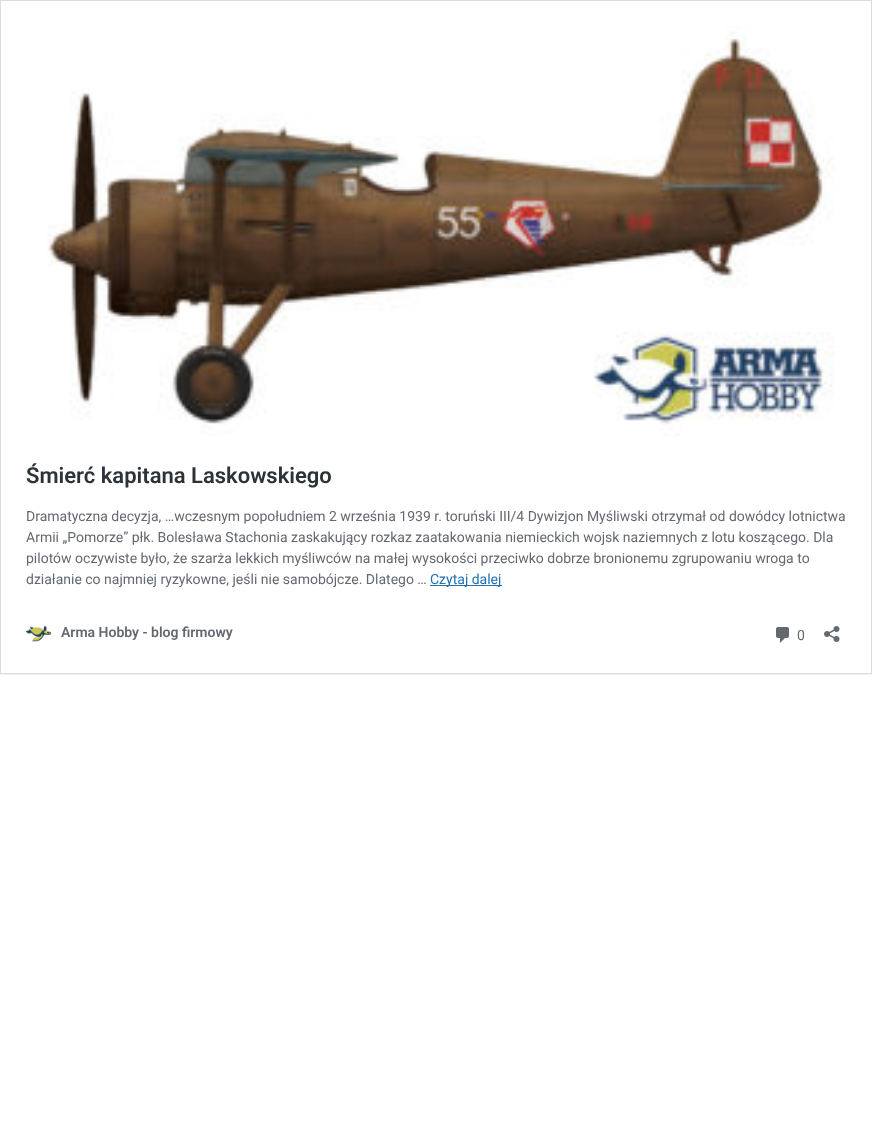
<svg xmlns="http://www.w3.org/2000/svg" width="872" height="1122">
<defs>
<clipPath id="clip1"><rect x="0" y="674" width="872" height="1"/></clipPath>
</defs>
<rect width="100%" height="100%" fill="#fff"/>
<g clip-path="url(#clip1)">
<rect y="1" width="872" height="674" fill="#0000000d" filter="blur(0.5px)"/>
</g>
<rect x="0.5" y="0.5" width="871" height="673" fill="none" stroke="#dcdcde"/>
<image x="47" y="26" width="788" height="410" href="media/1.png"/>
<text x="26" y="483" style="font-family:Roboto;font-size:22px;font-weight:600;fill:#2c3338">Śmierć kapitana Laskowskiego</text>
<text x="26" y="521" style="font-family:Roboto;font-size:14px;fill:#646970">Dramatyczna decyzja, …wczesnym popołudniem 2 września 1939 r. toruński III/4 Dywizjon Myśliwski otrzymał od dowódcy lotnictwa</text>
<text x="26" y="542" style="font-family:Roboto;font-size:14px;fill:#646970">Armii „Pomorze” płk. Bolesława Stachonia zaskakujący rozkaz zaatakowania niemieckich wojsk naziemnych z lotu koszącego. Dla</text>
<text x="26" y="563" style="font-family:Roboto;font-size:14px;fill:#646970">pilotów oczywiste było, że szarża lekkich myśliwców na małej wysokości przeciwko dobrze bronionemu zgrupowaniu wroga to</text>
<text x="26" y="584" style="font-family:Roboto;font-size:14px;fill:#646970">działanie co najmniej ryzykowne, jeśli nie samobójcze. Dlatego …</text>
<rect x="430" y="585" width="72" height="1" fill="#2271b1"/>
<text x="430" y="584" style="font-family:Roboto;font-size:14px;fill:#2271b1">Czytaj dalej</text>
<image x="26" y="625" width="25" height="17" href="media/2.png"/>
<text x="61" y="637" style="font-family:Roboto;font-size:14px;font-weight:600;fill:#646970">Arma Hobby - blog firmowy</text>
<image x="776" y="627" width="13" height="16" href="media/3.png"/>
<text x="797" y="640" style="font-family:Roboto;font-size:14px;fill:#646970">0</text>
<image x="824" y="626" width="16" height="16" href="media/4.png"/>
</svg>
